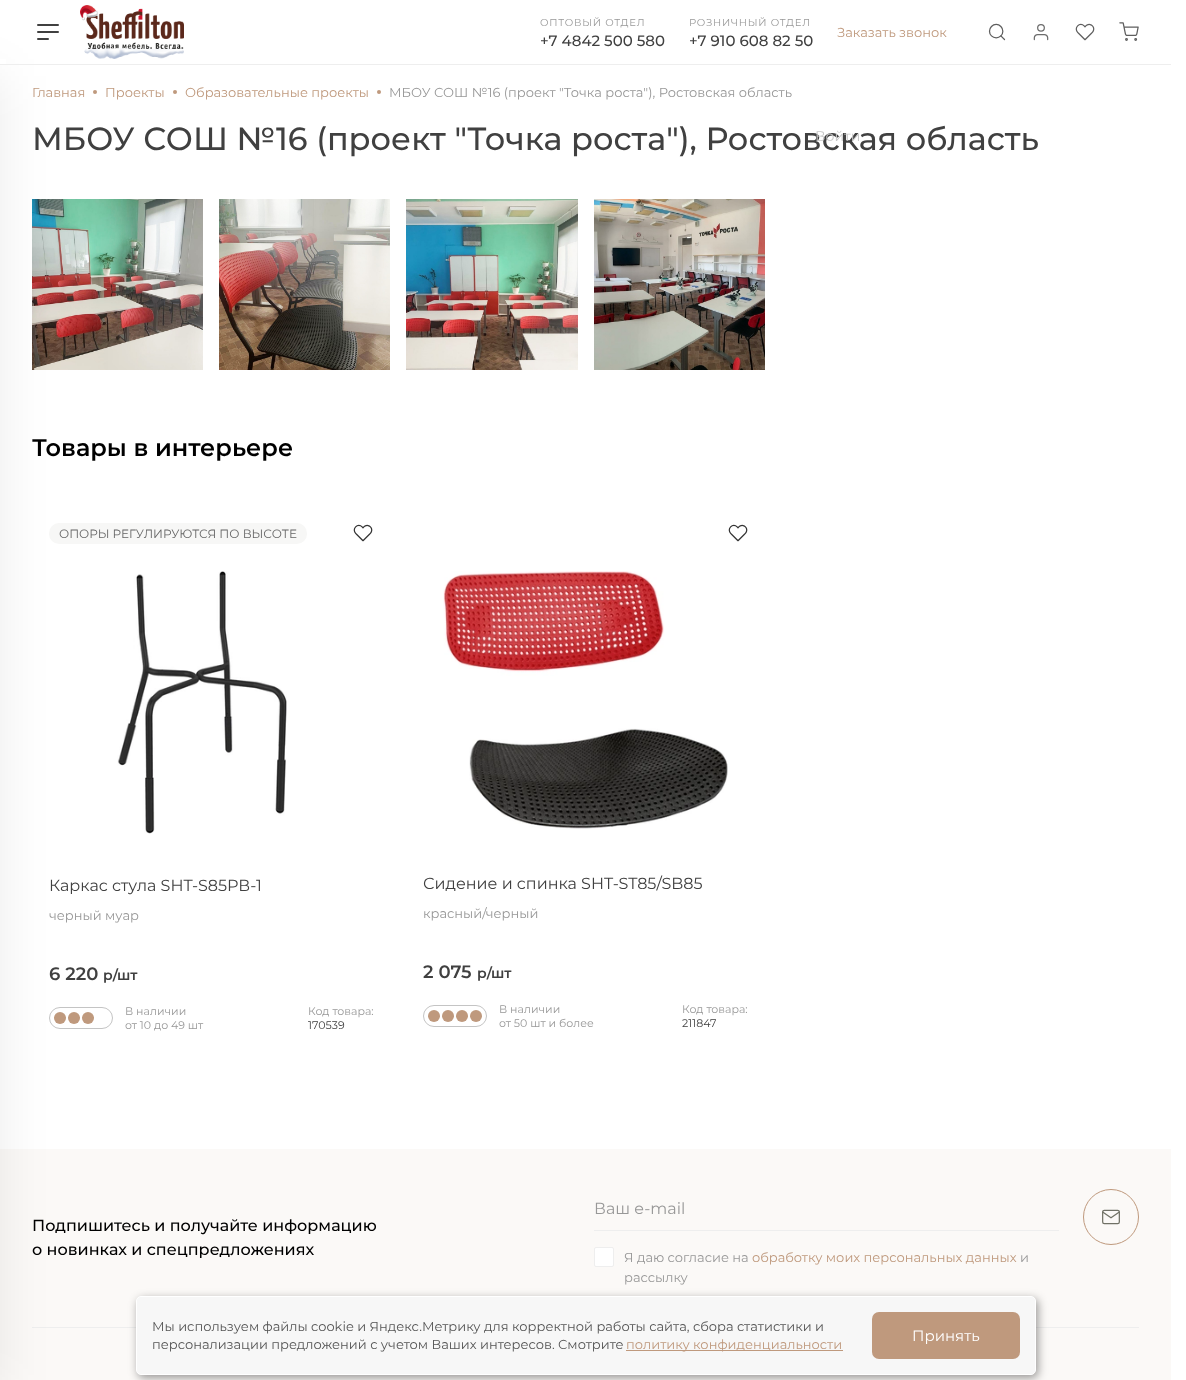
<svg xmlns="http://www.w3.org/2000/svg" width="1186" height="1380">
<rect width="100%" height="100%" fill="#fff"/>
<image x="32" y="199" width="171" height="171" href="media/6.png"/>
<rect x="49" y="523" width="258" height="21" rx="10" fill="#f7f7f6"/>
<rect x="49.5" y="1007.5" width="63" height="21" rx="10.5" fill="none" stroke="#c4c4c4"/>
<circle cx="60" cy="1018" r="6" fill="#bf997d"/>
<circle cx="74" cy="1018" r="6" fill="#bf997d"/>
<rect y="1149" width="1171" height="231" fill="#fbf9f7"/>
<rect x="32" y="1327" width="1107" height="1" fill="#eee"/>
<rect x="-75" y="76" width="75" height="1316" fill="#00000014" filter="blur(25px)"/>
<rect y="59" width="6" height="5" fill="#fff"/>
<rect x="37" y="24" width="22" height="2" rx="1" fill="#404040"/>
<rect x="37" y="31" width="22" height="2" rx="1" fill="#404040"/>
<rect x="37" y="38" width="12" height="2" rx="1" fill="#404040"/>
<image x="80" y="5" width="104" height="54" href="media/1.png"/>
<text x="540" y="26" style="font-family:Montserrat;font-size:10px;letter-spacing:0.75px;fill:#989898">ОПТОВЫЙ ОТДЕЛ</text>
<text x="540" y="46" style="font-family:Montserrat;font-size:15px;font-weight:500;fill:#404040">+7 4842 500 580</text>
<text x="689" y="26" style="font-family:Montserrat;font-size:10px;letter-spacing:0.75px;fill:#989898">РОЗНИЧНЫЙ ОТДЕЛ</text>
<text x="689" y="46" style="font-family:Montserrat;font-size:15px;font-weight:500;fill:#404040">+7 910 608 82 50</text>
<text x="837" y="37" style="font-family:Montserrat;font-size:13px;fill:#bf997d">Заказать звонок</text>
<rect y="64" width="1171" height="1" fill="#eee"/>
<image x="988" y="23" width="18" height="18" href="media/2.png"/>
<image x="1075" y="23" width="20" height="18" href="media/3.png"/>
<image x="1119" y="22" width="20" height="19" href="media/4.png"/>
<image x="1033" y="24" width="16" height="17" href="media/5.png"/>
<text x="32" y="150" style="font-family:Montserrat;font-size:32px;font-weight:500;fill:#404040">МБОУ СОШ №16 (проект "Точка роста"), Ростовская область</text>
<text x="815" y="141" style="font-family:Montserrat;font-size:14px;fill:#c7c7c7">Войти</text>
<text x="32" y="97" style="font-family:Montserrat;font-size:13px;fill:#bf997d">Главная</text>
<circle cx="95" cy="92" r="2" fill="#bf997d"/>
<text x="105" y="97" style="font-family:Montserrat;font-size:13px;fill:#bf997d">Проекты</text>
<circle cx="175" cy="92" r="2" fill="#bf997d"/>
<text x="185" y="97" style="font-family:Montserrat;font-size:13px;fill:#bf997d">Образовательные проекты</text>
<circle cx="379" cy="92" r="2" fill="#bf997d"/>
<text x="389" y="97" style="font-family:Montserrat;font-size:13px;fill:#989898">МБОУ СОШ №16 (проект "Точка роста"), Ростовская область</text>
<image x="219" y="199" width="171" height="171" href="media/7.png"/>
<image x="406" y="199" width="172" height="171" href="media/8.png"/>
<image x="594" y="199" width="171" height="171" href="media/9.png"/>
<text x="32" y="456" style="font-family:Montserrat;font-size:24px;font-weight:600;fill:#000">Товары в интерьере</text>
<text x="59" y="538" style="font-family:Montserrat;font-size:12px;fill:#666">ОПОРЫ РЕГУЛИРУЮТСЯ ПО ВЫСОТЕ</text>
<image x="353" y="524" width="20" height="18" href="media/10.png"/>
<image x="117" y="571" width="170" height="263" href="media/11.png"/>
<text x="49" y="891" style="font-family:Montserrat;font-size:16px;fill:#404040">Каркас стула SHT-S85РВ-1</text>
<text x="49" y="920" style="font-family:Montserrat;font-size:13px;fill:#989898">черный муар</text>
<text x="49" y="980" style="font-family:Montserrat;font-size:18px;font-weight:600;fill:#404040">6 220</text>
<text x="103" y="980" style="font-family:Montserrat;font-size:14px;font-weight:600;fill:#404040">р/шт</text>
<circle cx="88" cy="1018" r="6" fill="#bf997d"/>
<text x="125" y="1015" style="font-family:Montserrat;font-size:11px;fill:#989898">В наличии</text>
<text x="125" y="1029" style="font-family:Montserrat;font-size:11px;fill:#989898">от 10 до 49 шт</text>
<text x="308" y="1015" style="font-family:Montserrat;font-size:11px;fill:#989898">Код товара:</text>
<text x="308" y="1029" style="font-family:Montserrat;font-size:11px;fill:#404040">170539</text>
<image x="728" y="524" width="20" height="18" href="media/10.png"/>
<image x="443" y="571" width="285" height="258" href="media/12.png"/>
<text x="423" y="889" style="font-family:Montserrat;font-size:16px;fill:#404040">Сидение и спинка SHT-ST85/SB85</text>
<text x="423" y="918" style="font-family:Montserrat;font-size:13px;fill:#989898">красный/черный</text>
<text x="423" y="978" style="font-family:Montserrat;font-size:18px;font-weight:600;fill:#404040">2 075</text>
<text x="477" y="978" style="font-family:Montserrat;font-size:14px;font-weight:600;fill:#404040">р/шт</text>
<rect x="423.5" y="1005.5" width="63" height="21" rx="10.5" fill="none" stroke="#c4c4c4"/>
<circle cx="434" cy="1016" r="6" fill="#bf997d"/>
<circle cx="448" cy="1016" r="6" fill="#bf997d"/>
<circle cx="462" cy="1016" r="6" fill="#bf997d"/>
<circle cx="476" cy="1016" r="6" fill="#bf997d"/>
<text x="499" y="1013" style="font-family:Montserrat;font-size:11px;fill:#989898">В наличии</text>
<text x="499" y="1027" style="font-family:Montserrat;font-size:11px;fill:#989898">от 50 шт и более</text>
<text x="682" y="1013" style="font-family:Montserrat;font-size:11px;fill:#989898">Код товара:</text>
<text x="682" y="1027" style="font-family:Montserrat;font-size:11px;fill:#404040">211847</text>
<text x="32" y="1231" style="font-family:Montserrat;font-size:16px;font-weight:500;fill:#000">Подпишитесь и получайте информацию</text>
<text x="32" y="1255" style="font-family:Montserrat;font-size:16px;font-weight:500;fill:#000">о новинках и спецпредложениях</text>
<rect x="594" y="1230" width="465" height="1" fill="#eee"/>
<text x="594" y="1214" style="font-family:Montserrat;font-size:16px;fill:#989898">Ваш e-mail</text>
<rect x="594.5" y="1247.5" width="19" height="19" rx="1.5" fill="#fff" stroke="#eee"/>
<text x="624" y="1262" style="font-family:Montserrat;font-size:13px;fill:#989898">Я даю согласие на</text>
<text x="752" y="1262" style="font-family:Montserrat;font-size:13px;fill:#bf997d">обработку моих персональных данных</text>
<text x="1020" y="1262" style="font-family:Montserrat;font-size:13px;fill:#989898">и</text>
<text x="624" y="1282" style="font-family:Montserrat;font-size:13px;fill:#989898">рассылку</text>
<circle cx="1111" cy="1217" r="27.5" fill="none" stroke="#bf997d"/>
<image x="1102" y="1209" width="18" height="16" href="media/13.png"/>
<rect x="138" y="1299" width="900" height="79" rx="5" fill="#00000066" filter="blur(5px)"/>
<rect x="136.5" y="1296.5" width="899" height="78" rx="4.5" fill="#f7f7f7" stroke="#fff"/>
<text x="152" y="1331" style="font-family:Montserrat;font-size:13px;fill:#555">Мы используем файлы cookie и Яндекс.Метрику для корректной работы сайта, сбора статистики и</text>
<text x="152" y="1349" style="font-family:Montserrat;font-size:13px;fill:#555">персонализации предложений с учетом Ваших интересов. Смотрите</text>
<rect x="626" y="1350" width="217" height="1" fill="#bf997d"/>
<text x="626" y="1349" style="font-family:Montserrat;font-size:13px;fill:#bf997d">политику конфиденциальности</text>
<rect x="872" y="1312" width="148" height="47" rx="7" fill="#bf997d"/>
<text x="912" y="1341" style="font-family:Montserrat;font-size:15px;fill:#fff">Принять</text>
</svg>
